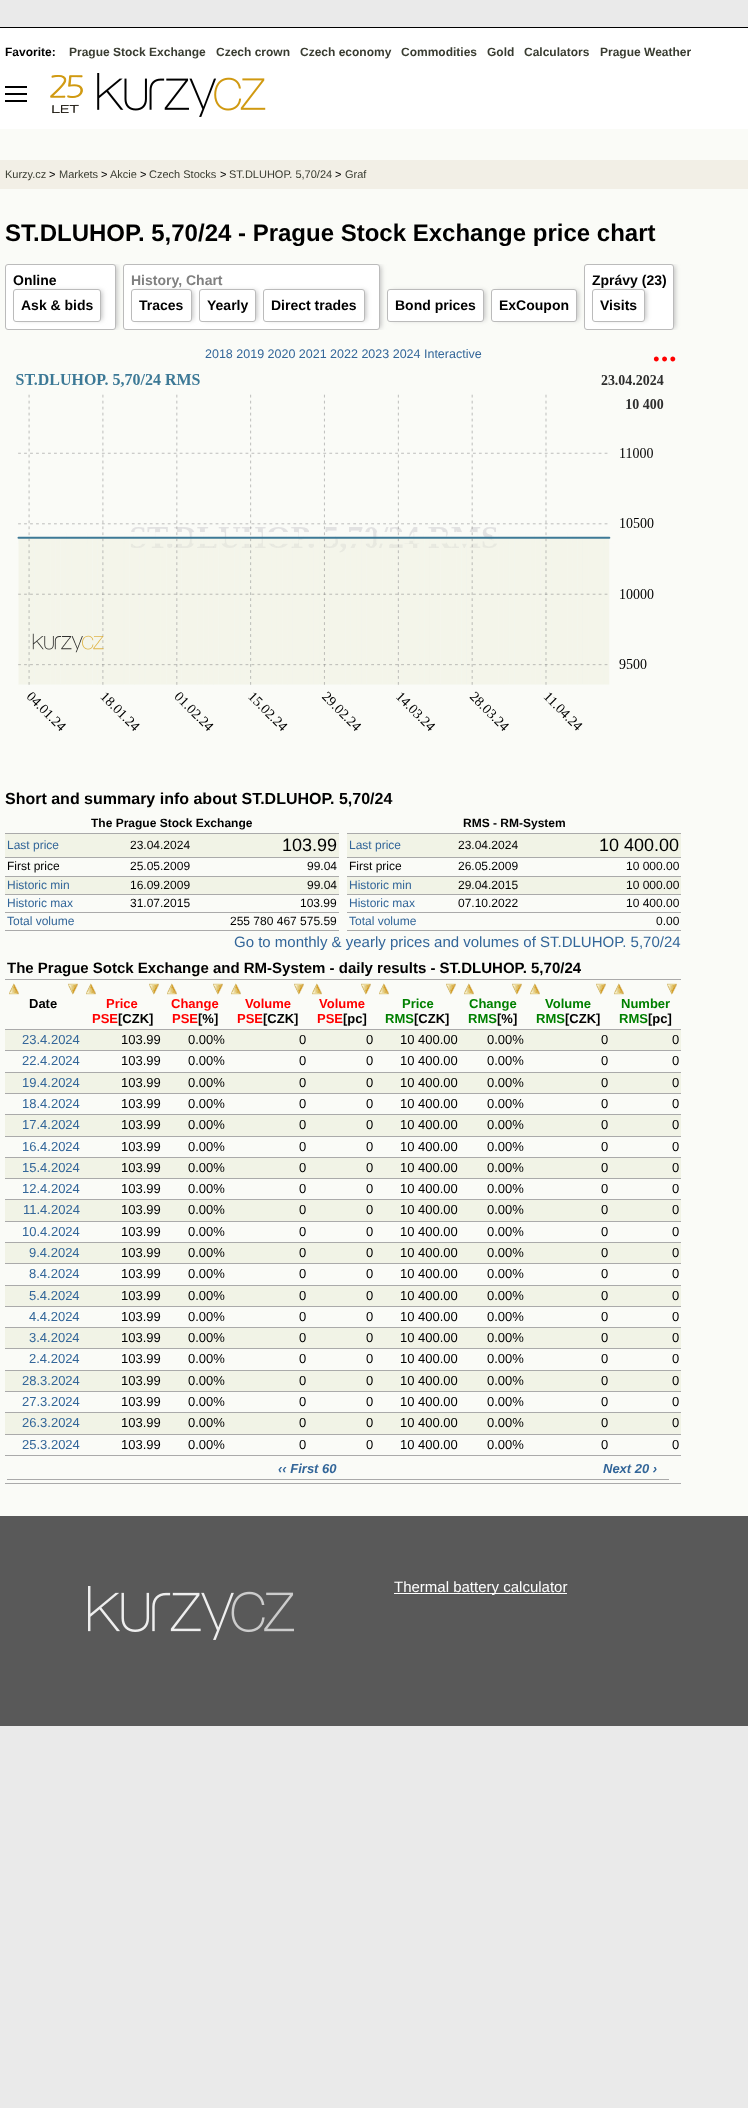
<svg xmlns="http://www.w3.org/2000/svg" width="748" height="2108">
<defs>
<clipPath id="clip1"><rect x="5" y="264" width="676" height="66"/></clipPath>
</defs>
<rect width="100%" height="100%" fill="#eaeaea"/>
<rect y="129" width="748" height="1387" fill="#fafbf7"/>
<rect y="27" width="748" height="1" fill="#000"/>
<rect y="28" width="748" height="101" fill="#fff"/>
<rect x="5" y="86" width="22" height="2" fill="#000"/>
<image x="50" y="73" width="216" height="44" href="media/1.png"/>
<rect x="5" y="93" width="22" height="2" fill="#000"/>
<rect x="5" y="100" width="22" height="2" fill="#000"/>
<text x="5" y="56" style="font-family:Liberation Sans;font-size:12px;font-weight:bold;fill:#000">Favorite:</text>
<text x="69" y="56" style="font-family:Liberation Sans;font-size:12px;font-weight:bold;fill:#393c31">Prague Stock Exchange</text>
<text x="216" y="56" style="font-family:Liberation Sans;font-size:12px;font-weight:bold;fill:#393c31">Czech crown</text>
<text x="300" y="56" style="font-family:Liberation Sans;font-size:12px;font-weight:bold;fill:#393c31">Czech economy</text>
<text x="401" y="56" style="font-family:Liberation Sans;font-size:12px;font-weight:bold;fill:#393c31">Commodities</text>
<text x="487" y="56" style="font-family:Liberation Sans;font-size:12px;font-weight:bold;fill:#393c31">Gold</text>
<text x="524" y="56" style="font-family:Liberation Sans;font-size:12px;font-weight:bold;fill:#393c31">Calculators</text>
<text x="600" y="56" style="font-family:Liberation Sans;font-size:12px;font-weight:bold;fill:#393c31">Prague Weather</text>
<rect y="160" width="748" height="29" fill="#f2efe6"/>
<text x="5" y="178" style="font-family:Liberation Sans;font-size:11px;fill:#393c31">Kurzy.cz</text>
<text x="49" y="178" style="font-family:Liberation Sans;font-size:11px;fill:#000">&gt;</text>
<text x="59" y="178" style="font-family:Liberation Sans;font-size:11px;fill:#393c31">Markets</text>
<text x="101" y="178" style="font-family:Liberation Sans;font-size:11px;fill:#000">&gt;</text>
<text x="110" y="178" style="font-family:Liberation Sans;font-size:11px;fill:#393c31">Akcie</text>
<text x="140" y="178" style="font-family:Liberation Sans;font-size:11px;fill:#000">&gt;</text>
<text x="149" y="178" style="font-family:Liberation Sans;font-size:11px;fill:#393c31">Czech Stocks</text>
<text x="220" y="178" style="font-family:Liberation Sans;font-size:11px;fill:#000">&gt;</text>
<text x="229" y="178" style="font-family:Liberation Sans;font-size:11px;fill:#393c31">ST.DLUHOP. 5,70/24</text>
<text x="335" y="178" style="font-family:Liberation Sans;font-size:11px;fill:#000">&gt;</text>
<text x="345" y="178" style="font-family:Liberation Sans;font-size:11px;fill:#393c31">Graf</text>
<text x="5" y="241" style="font-family:Liberation Sans;font-size:24px;font-weight:bold;fill:#000">ST.DLUHOP. 5,70/24 - Prague Stock Exchange price chart</text>
<g clip-path="url(#clip1)">
<rect x="10" y="266" width="107" height="62" rx="1" fill="#bbb" filter="blur(2.5px)"/>
</g>
<rect x="5.5" y="264.5" width="110" height="65" rx="2.5" fill="#fff" stroke="#bbb"/>
<text x="13" y="285" style="font-family:Liberation Sans;font-size:14px;font-weight:bold;fill:#000">Online</text>
<rect x="18" y="291" width="84" height="29" rx="1" fill="#bbb" filter="blur(2.5px)"/>
<rect x="13.5" y="289.5" width="87" height="32" rx="2.5" fill="#fff" stroke="#bbb"/>
<text x="21" y="310" style="font-family:Liberation Sans;font-size:14px;font-weight:bold;fill:#000">Ask &amp; bids</text>
<g clip-path="url(#clip1)">
<rect x="128" y="266" width="253" height="62" rx="1" fill="#bbb" filter="blur(2.5px)"/>
</g>
<rect x="123.5" y="264.5" width="256" height="65" rx="2.5" fill="#fff" stroke="#bbb"/>
<text x="131" y="285" style="font-family:Liberation Sans;font-size:14px;font-weight:bold;fill:#808080">History, Chart</text>
<rect x="136" y="291" width="57" height="29" rx="1" fill="#bbb" filter="blur(2.5px)"/>
<rect x="131.5" y="289.5" width="60" height="32" rx="2.5" fill="#fff" stroke="#bbb"/>
<text x="139" y="310" style="font-family:Liberation Sans;font-size:14px;font-weight:bold;fill:#000">Traces</text>
<rect x="204" y="291" width="53" height="29" rx="1" fill="#bbb" filter="blur(2.5px)"/>
<rect x="199.5" y="289.5" width="56" height="32" rx="2.5" fill="#fff" stroke="#bbb"/>
<text x="207" y="310" style="font-family:Liberation Sans;font-size:14px;font-weight:bold;fill:#000">Yearly</text>
<rect x="268" y="291" width="98" height="29" rx="1" fill="#bbb" filter="blur(2.5px)"/>
<rect x="263.5" y="289.5" width="101" height="32" rx="2.5" fill="#fff" stroke="#bbb"/>
<text x="271" y="310" style="font-family:Liberation Sans;font-size:14px;font-weight:bold;fill:#000">Direct trades</text>
<rect x="392" y="291" width="93" height="29" rx="1" fill="#bbb" filter="blur(2.5px)"/>
<rect x="387.5" y="289.5" width="96" height="32" rx="2.5" fill="#fff" stroke="#bbb"/>
<text x="395" y="310" style="font-family:Liberation Sans;font-size:14px;font-weight:bold;fill:#000">Bond prices</text>
<rect x="496" y="291" width="82" height="29" rx="1" fill="#bbb" filter="blur(2.5px)"/>
<rect x="491.5" y="289.5" width="85" height="32" rx="2.5" fill="#fff" stroke="#bbb"/>
<text x="499" y="310" style="font-family:Liberation Sans;font-size:14px;font-weight:bold;fill:#000">ExCoupon</text>
<g clip-path="url(#clip1)">
<rect x="589" y="266" width="86" height="62" rx="1" fill="#bbb" filter="blur(2.5px)"/>
</g>
<rect x="584.5" y="264.5" width="89" height="65" rx="2.5" fill="#fff" stroke="#bbb"/>
<text x="592" y="285" style="font-family:Liberation Sans;font-size:14px;font-weight:bold;fill:#000">Zprávy (23)</text>
<rect x="597" y="291" width="49" height="29" rx="1" fill="#bbb" filter="blur(2.5px)"/>
<rect x="592.5" y="289.5" width="52" height="32" rx="2.5" fill="#fff" stroke="#bbb"/>
<text x="600" y="310" style="font-family:Liberation Sans;font-size:14px;font-weight:bold;fill:#000">Visits</text>
<text x="205" y="358" style="font-family:Liberation Sans;font-size:12.5px;fill:#369">2018 2019 2020 2021 2022 2023 2024 Interactive</text>
<text x="653" y="365" style="font-family:Liberation Sans;font-size:18px;font-style:italic;letter-spacing:2px;fill:#f00">•••</text>
<image x="16" y="374" width="648" height="357" href="media/2.png"/>
<text x="5" y="804" style="font-family:Liberation Sans;font-size:16px;font-weight:bold;fill:#000">Short and summary info about ST.DLUHOP. 5,70/24</text>
<rect x="5" y="833" width="334" height="1" fill="#aaa"/>
<text x="91" y="827" style="font-family:Liberation Sans;font-size:12px;font-weight:bold;fill:#000">The Prague Stock Exchange</text>
<rect x="5" y="834" width="334" height="23" fill="#f1f3e6"/>
<rect x="5" y="857" width="334" height="1" fill="#aaa"/>
<text x="7" y="849" style="font-family:Liberation Sans;font-size:12px;fill:#369">Last price</text>
<text x="130" y="849" style="font-family:Liberation Sans;font-size:12px;fill:#000">23.04.2024</text>
<text x="282" y="851" style="font-family:Liberation Sans;font-size:18px;fill:#000">103.99</text>
<rect x="5" y="876" width="334" height="1" fill="#aaa"/>
<text x="7" y="870" style="font-family:Liberation Sans;font-size:12px;fill:#000">First price</text>
<text x="130" y="870" style="font-family:Liberation Sans;font-size:12px;fill:#000">25.05.2009</text>
<text x="307" y="870" style="font-family:Liberation Sans;font-size:12px;fill:#000">99.04</text>
<rect x="5" y="877" width="334" height="17" fill="#f1f3e6"/>
<rect x="5" y="894" width="334" height="1" fill="#aaa"/>
<text x="7" y="889" style="font-family:Liberation Sans;font-size:12px;fill:#369">Historic min</text>
<text x="130" y="889" style="font-family:Liberation Sans;font-size:12px;fill:#000">16.09.2009</text>
<text x="307" y="889" style="font-family:Liberation Sans;font-size:12px;fill:#000">99.04</text>
<rect x="5" y="912" width="334" height="1" fill="#aaa"/>
<text x="7" y="907" style="font-family:Liberation Sans;font-size:12px;fill:#369">Historic max</text>
<text x="130" y="907" style="font-family:Liberation Sans;font-size:12px;fill:#000">31.07.2015</text>
<text x="300" y="907" style="font-family:Liberation Sans;font-size:12px;fill:#000">103.99</text>
<rect x="5" y="930" width="334" height="1" fill="#aaa"/>
<text x="7" y="925" style="font-family:Liberation Sans;font-size:12px;fill:#369">Total volume</text>
<text x="230" y="925" style="font-family:Liberation Sans;font-size:12px;fill:#000">255 780 467 575.59</text>
<rect x="347" y="833" width="334" height="1" fill="#aaa"/>
<text x="463" y="827" style="font-family:Liberation Sans;font-size:12px;font-weight:bold;fill:#000">RMS - RM-System</text>
<rect x="347" y="834" width="334" height="23" fill="#f1f3e6"/>
<rect x="347" y="857" width="334" height="1" fill="#aaa"/>
<text x="349" y="849" style="font-family:Liberation Sans;font-size:12px;fill:#369">Last price</text>
<text x="458" y="849" style="font-family:Liberation Sans;font-size:12px;fill:#000">23.04.2024</text>
<text x="599" y="851" style="font-family:Liberation Sans;font-size:18px;fill:#000">10 400.00</text>
<rect x="347" y="876" width="334" height="1" fill="#aaa"/>
<text x="349" y="870" style="font-family:Liberation Sans;font-size:12px;fill:#000">First price</text>
<text x="458" y="870" style="font-family:Liberation Sans;font-size:12px;fill:#000">26.05.2009</text>
<text x="626" y="870" style="font-family:Liberation Sans;font-size:12px;fill:#000">10 000.00</text>
<rect x="347" y="877" width="334" height="17" fill="#f1f3e6"/>
<rect x="347" y="894" width="334" height="1" fill="#aaa"/>
<text x="349" y="889" style="font-family:Liberation Sans;font-size:12px;fill:#369">Historic min</text>
<text x="458" y="889" style="font-family:Liberation Sans;font-size:12px;fill:#000">29.04.2015</text>
<text x="626" y="889" style="font-family:Liberation Sans;font-size:12px;fill:#000">10 000.00</text>
<rect x="347" y="912" width="334" height="1" fill="#aaa"/>
<text x="349" y="907" style="font-family:Liberation Sans;font-size:12px;fill:#369">Historic max</text>
<text x="458" y="907" style="font-family:Liberation Sans;font-size:12px;fill:#000">07.10.2022</text>
<text x="626" y="907" style="font-family:Liberation Sans;font-size:12px;fill:#000">10 400.00</text>
<rect x="347" y="930" width="334" height="1" fill="#aaa"/>
<text x="349" y="925" style="font-family:Liberation Sans;font-size:12px;fill:#369">Total volume</text>
<text x="656" y="925" style="font-family:Liberation Sans;font-size:12px;fill:#000">0.00</text>
<text x="234" y="947" style="font-family:Liberation Sans;font-size:15px;fill:#369">Go to monthly &amp; yearly prices and volumes of ST.DLUHOP. 5,70/24</text>
<rect x="5" y="979" width="676" height="1" fill="#aaa"/>
<text x="7" y="973" style="font-family:Liberation Sans;font-size:15px;font-weight:bold;fill:#000">The Prague Sotck Exchange and RM-System - daily results - ST.DLUHOP. 5,70/24</text>
<rect x="5" y="1029" width="676" height="1" fill="#aaa"/>
<image x="9" y="983" width="10" height="12" href="media/3.png"/>
<image x="68" y="983" width="10" height="12" href="media/4.png"/>
<text x="29" y="1008" style="font-family:Liberation Sans;font-size:13px;font-weight:bold;fill:#000">Date</text>
<image x="86" y="983" width="10" height="12" href="media/3.png"/>
<image x="149" y="983" width="10" height="12" href="media/4.png"/>
<text x="106" y="1008" style="font-family:Liberation Sans;font-size:13px;font-weight:bold;fill:#f00">Price</text>
<text x="92" y="1023" style="font-family:Liberation Sans;font-size:13px;font-weight:bold;fill:#f00">PSE</text>
<text x="118" y="1023" style="font-family:Liberation Sans;font-size:13px;font-weight:bold;fill:#000">[CZK]</text>
<image x="167" y="983" width="10" height="12" href="media/3.png"/>
<image x="213" y="983" width="10" height="12" href="media/4.png"/>
<text x="171" y="1008" style="font-family:Liberation Sans;font-size:13px;font-weight:bold;fill:#f00">Change</text>
<text x="172" y="1023" style="font-family:Liberation Sans;font-size:13px;font-weight:bold;fill:#f00">PSE</text>
<text x="198" y="1023" style="font-family:Liberation Sans;font-size:13px;font-weight:bold;fill:#000">[%]</text>
<image x="231" y="983" width="10" height="12" href="media/3.png"/>
<image x="294" y="983" width="10" height="12" href="media/4.png"/>
<text x="245" y="1008" style="font-family:Liberation Sans;font-size:13px;font-weight:bold;fill:#f00">Volume</text>
<text x="237" y="1023" style="font-family:Liberation Sans;font-size:13px;font-weight:bold;fill:#f00">PSE</text>
<text x="263" y="1023" style="font-family:Liberation Sans;font-size:13px;font-weight:bold;fill:#000">[CZK]</text>
<image x="312" y="983" width="10" height="12" href="media/3.png"/>
<image x="361" y="983" width="10" height="12" href="media/4.png"/>
<text x="319" y="1008" style="font-family:Liberation Sans;font-size:13px;font-weight:bold;fill:#f00">Volume</text>
<text x="317" y="1023" style="font-family:Liberation Sans;font-size:13px;font-weight:bold;fill:#f00">PSE</text>
<text x="343" y="1023" style="font-family:Liberation Sans;font-size:13px;font-weight:bold;fill:#000">[pc]</text>
<image x="379" y="983" width="10" height="12" href="media/3.png"/>
<image x="446" y="983" width="10" height="12" href="media/4.png"/>
<text x="402" y="1008" style="font-family:Liberation Sans;font-size:13px;font-weight:bold;fill:#008000">Price</text>
<text x="385" y="1023" style="font-family:Liberation Sans;font-size:13px;font-weight:bold;fill:#008000">RMS</text>
<text x="414" y="1023" style="font-family:Liberation Sans;font-size:13px;font-weight:bold;fill:#000">[CZK]</text>
<image x="464" y="983" width="10" height="12" href="media/3.png"/>
<image x="512" y="983" width="10" height="12" href="media/4.png"/>
<text x="469" y="1008" style="font-family:Liberation Sans;font-size:13px;font-weight:bold;fill:#008000">Change</text>
<text x="468" y="1023" style="font-family:Liberation Sans;font-size:13px;font-weight:bold;fill:#008000">RMS</text>
<text x="497" y="1023" style="font-family:Liberation Sans;font-size:13px;font-weight:bold;fill:#000">[%]</text>
<image x="530" y="983" width="10" height="12" href="media/3.png"/>
<image x="596" y="983" width="10" height="12" href="media/4.png"/>
<text x="545" y="1008" style="font-family:Liberation Sans;font-size:13px;font-weight:bold;fill:#008000">Volume</text>
<text x="536" y="1023" style="font-family:Liberation Sans;font-size:13px;font-weight:bold;fill:#008000">RMS</text>
<text x="565" y="1023" style="font-family:Liberation Sans;font-size:13px;font-weight:bold;fill:#000">[CZK]</text>
<image x="614" y="983" width="10" height="12" href="media/3.png"/>
<image x="667" y="983" width="10" height="12" href="media/4.png"/>
<text x="621" y="1008" style="font-family:Liberation Sans;font-size:13px;font-weight:bold;fill:#008000">Number</text>
<text x="619" y="1023" style="font-family:Liberation Sans;font-size:13px;font-weight:bold;fill:#008000">RMS</text>
<text x="648" y="1023" style="font-family:Liberation Sans;font-size:13px;font-weight:bold;fill:#000">[pc]</text>
<rect x="5" y="1030" width="676" height="20" fill="#f1f3e6"/>
<rect x="5" y="1050" width="676" height="1" fill="#aaa"/>
<text x="22" y="1044" style="font-family:Liberation Sans;font-size:13px;fill:#369">23.4.2024</text>
<text x="121" y="1044" style="font-family:Liberation Sans;font-size:13px;fill:#000">103.99</text>
<text x="188" y="1044" style="font-family:Liberation Sans;font-size:13px;fill:#000">0.00%</text>
<text x="299" y="1044" style="font-family:Liberation Sans;font-size:13px;fill:#000">0</text>
<text x="366" y="1044" style="font-family:Liberation Sans;font-size:13px;fill:#000">0</text>
<text x="400" y="1044" style="font-family:Liberation Sans;font-size:13px;fill:#000">10 400.00</text>
<text x="487" y="1044" style="font-family:Liberation Sans;font-size:13px;fill:#000">0.00%</text>
<text x="601" y="1044" style="font-family:Liberation Sans;font-size:13px;fill:#000">0</text>
<text x="672" y="1044" style="font-family:Liberation Sans;font-size:13px;fill:#000">0</text>
<rect x="5" y="1072" width="676" height="1" fill="#aaa"/>
<text x="22" y="1065" style="font-family:Liberation Sans;font-size:13px;fill:#369">22.4.2024</text>
<text x="121" y="1065" style="font-family:Liberation Sans;font-size:13px;fill:#000">103.99</text>
<text x="188" y="1065" style="font-family:Liberation Sans;font-size:13px;fill:#000">0.00%</text>
<text x="299" y="1065" style="font-family:Liberation Sans;font-size:13px;fill:#000">0</text>
<text x="366" y="1065" style="font-family:Liberation Sans;font-size:13px;fill:#000">0</text>
<text x="400" y="1065" style="font-family:Liberation Sans;font-size:13px;fill:#000">10 400.00</text>
<text x="487" y="1065" style="font-family:Liberation Sans;font-size:13px;fill:#000">0.00%</text>
<text x="601" y="1065" style="font-family:Liberation Sans;font-size:13px;fill:#000">0</text>
<text x="672" y="1065" style="font-family:Liberation Sans;font-size:13px;fill:#000">0</text>
<rect x="5" y="1073" width="676" height="20" fill="#f1f3e6"/>
<rect x="5" y="1093" width="676" height="1" fill="#aaa"/>
<text x="22" y="1087" style="font-family:Liberation Sans;font-size:13px;fill:#369">19.4.2024</text>
<text x="121" y="1087" style="font-family:Liberation Sans;font-size:13px;fill:#000">103.99</text>
<text x="188" y="1087" style="font-family:Liberation Sans;font-size:13px;fill:#000">0.00%</text>
<text x="299" y="1087" style="font-family:Liberation Sans;font-size:13px;fill:#000">0</text>
<text x="366" y="1087" style="font-family:Liberation Sans;font-size:13px;fill:#000">0</text>
<text x="400" y="1087" style="font-family:Liberation Sans;font-size:13px;fill:#000">10 400.00</text>
<text x="487" y="1087" style="font-family:Liberation Sans;font-size:13px;fill:#000">0.00%</text>
<text x="601" y="1087" style="font-family:Liberation Sans;font-size:13px;fill:#000">0</text>
<text x="672" y="1087" style="font-family:Liberation Sans;font-size:13px;fill:#000">0</text>
<rect x="5" y="1114" width="676" height="1" fill="#aaa"/>
<text x="22" y="1108" style="font-family:Liberation Sans;font-size:13px;fill:#369">18.4.2024</text>
<text x="121" y="1108" style="font-family:Liberation Sans;font-size:13px;fill:#000">103.99</text>
<text x="188" y="1108" style="font-family:Liberation Sans;font-size:13px;fill:#000">0.00%</text>
<text x="299" y="1108" style="font-family:Liberation Sans;font-size:13px;fill:#000">0</text>
<text x="366" y="1108" style="font-family:Liberation Sans;font-size:13px;fill:#000">0</text>
<text x="400" y="1108" style="font-family:Liberation Sans;font-size:13px;fill:#000">10 400.00</text>
<text x="487" y="1108" style="font-family:Liberation Sans;font-size:13px;fill:#000">0.00%</text>
<text x="601" y="1108" style="font-family:Liberation Sans;font-size:13px;fill:#000">0</text>
<text x="672" y="1108" style="font-family:Liberation Sans;font-size:13px;fill:#000">0</text>
<rect x="5" y="1115" width="676" height="21" fill="#f1f3e6"/>
<rect x="5" y="1136" width="676" height="1" fill="#aaa"/>
<text x="22" y="1129" style="font-family:Liberation Sans;font-size:13px;fill:#369">17.4.2024</text>
<text x="121" y="1129" style="font-family:Liberation Sans;font-size:13px;fill:#000">103.99</text>
<text x="188" y="1129" style="font-family:Liberation Sans;font-size:13px;fill:#000">0.00%</text>
<text x="299" y="1129" style="font-family:Liberation Sans;font-size:13px;fill:#000">0</text>
<text x="366" y="1129" style="font-family:Liberation Sans;font-size:13px;fill:#000">0</text>
<text x="400" y="1129" style="font-family:Liberation Sans;font-size:13px;fill:#000">10 400.00</text>
<text x="487" y="1129" style="font-family:Liberation Sans;font-size:13px;fill:#000">0.00%</text>
<text x="601" y="1129" style="font-family:Liberation Sans;font-size:13px;fill:#000">0</text>
<text x="672" y="1129" style="font-family:Liberation Sans;font-size:13px;fill:#000">0</text>
<rect x="5" y="1157" width="676" height="1" fill="#aaa"/>
<text x="22" y="1151" style="font-family:Liberation Sans;font-size:13px;fill:#369">16.4.2024</text>
<text x="121" y="1151" style="font-family:Liberation Sans;font-size:13px;fill:#000">103.99</text>
<text x="188" y="1151" style="font-family:Liberation Sans;font-size:13px;fill:#000">0.00%</text>
<text x="299" y="1151" style="font-family:Liberation Sans;font-size:13px;fill:#000">0</text>
<text x="366" y="1151" style="font-family:Liberation Sans;font-size:13px;fill:#000">0</text>
<text x="400" y="1151" style="font-family:Liberation Sans;font-size:13px;fill:#000">10 400.00</text>
<text x="487" y="1151" style="font-family:Liberation Sans;font-size:13px;fill:#000">0.00%</text>
<text x="601" y="1151" style="font-family:Liberation Sans;font-size:13px;fill:#000">0</text>
<text x="672" y="1151" style="font-family:Liberation Sans;font-size:13px;fill:#000">0</text>
<rect x="5" y="1158" width="676" height="20" fill="#f1f3e6"/>
<rect x="5" y="1178" width="676" height="1" fill="#aaa"/>
<text x="22" y="1172" style="font-family:Liberation Sans;font-size:13px;fill:#369">15.4.2024</text>
<text x="121" y="1172" style="font-family:Liberation Sans;font-size:13px;fill:#000">103.99</text>
<text x="188" y="1172" style="font-family:Liberation Sans;font-size:13px;fill:#000">0.00%</text>
<text x="299" y="1172" style="font-family:Liberation Sans;font-size:13px;fill:#000">0</text>
<text x="366" y="1172" style="font-family:Liberation Sans;font-size:13px;fill:#000">0</text>
<text x="400" y="1172" style="font-family:Liberation Sans;font-size:13px;fill:#000">10 400.00</text>
<text x="487" y="1172" style="font-family:Liberation Sans;font-size:13px;fill:#000">0.00%</text>
<text x="601" y="1172" style="font-family:Liberation Sans;font-size:13px;fill:#000">0</text>
<text x="672" y="1172" style="font-family:Liberation Sans;font-size:13px;fill:#000">0</text>
<rect x="5" y="1199" width="676" height="1" fill="#aaa"/>
<text x="22" y="1193" style="font-family:Liberation Sans;font-size:13px;fill:#369">12.4.2024</text>
<text x="121" y="1193" style="font-family:Liberation Sans;font-size:13px;fill:#000">103.99</text>
<text x="188" y="1193" style="font-family:Liberation Sans;font-size:13px;fill:#000">0.00%</text>
<text x="299" y="1193" style="font-family:Liberation Sans;font-size:13px;fill:#000">0</text>
<text x="366" y="1193" style="font-family:Liberation Sans;font-size:13px;fill:#000">0</text>
<text x="400" y="1193" style="font-family:Liberation Sans;font-size:13px;fill:#000">10 400.00</text>
<text x="487" y="1193" style="font-family:Liberation Sans;font-size:13px;fill:#000">0.00%</text>
<text x="601" y="1193" style="font-family:Liberation Sans;font-size:13px;fill:#000">0</text>
<text x="672" y="1193" style="font-family:Liberation Sans;font-size:13px;fill:#000">0</text>
<rect x="5" y="1200" width="676" height="21" fill="#f1f3e6"/>
<rect x="5" y="1221" width="676" height="1" fill="#aaa"/>
<text x="23" y="1214" style="font-family:Liberation Sans;font-size:13px;fill:#369">11.4.2024</text>
<text x="121" y="1214" style="font-family:Liberation Sans;font-size:13px;fill:#000">103.99</text>
<text x="188" y="1214" style="font-family:Liberation Sans;font-size:13px;fill:#000">0.00%</text>
<text x="299" y="1214" style="font-family:Liberation Sans;font-size:13px;fill:#000">0</text>
<text x="366" y="1214" style="font-family:Liberation Sans;font-size:13px;fill:#000">0</text>
<text x="400" y="1214" style="font-family:Liberation Sans;font-size:13px;fill:#000">10 400.00</text>
<text x="487" y="1214" style="font-family:Liberation Sans;font-size:13px;fill:#000">0.00%</text>
<text x="601" y="1214" style="font-family:Liberation Sans;font-size:13px;fill:#000">0</text>
<text x="672" y="1214" style="font-family:Liberation Sans;font-size:13px;fill:#000">0</text>
<rect x="5" y="1242" width="676" height="1" fill="#aaa"/>
<text x="22" y="1236" style="font-family:Liberation Sans;font-size:13px;fill:#369">10.4.2024</text>
<text x="121" y="1236" style="font-family:Liberation Sans;font-size:13px;fill:#000">103.99</text>
<text x="188" y="1236" style="font-family:Liberation Sans;font-size:13px;fill:#000">0.00%</text>
<text x="299" y="1236" style="font-family:Liberation Sans;font-size:13px;fill:#000">0</text>
<text x="366" y="1236" style="font-family:Liberation Sans;font-size:13px;fill:#000">0</text>
<text x="400" y="1236" style="font-family:Liberation Sans;font-size:13px;fill:#000">10 400.00</text>
<text x="487" y="1236" style="font-family:Liberation Sans;font-size:13px;fill:#000">0.00%</text>
<text x="601" y="1236" style="font-family:Liberation Sans;font-size:13px;fill:#000">0</text>
<text x="672" y="1236" style="font-family:Liberation Sans;font-size:13px;fill:#000">0</text>
<rect x="5" y="1243" width="676" height="20" fill="#f1f3e6"/>
<rect x="5" y="1263" width="676" height="1" fill="#aaa"/>
<text x="29" y="1257" style="font-family:Liberation Sans;font-size:13px;fill:#369">9.4.2024</text>
<text x="121" y="1257" style="font-family:Liberation Sans;font-size:13px;fill:#000">103.99</text>
<text x="188" y="1257" style="font-family:Liberation Sans;font-size:13px;fill:#000">0.00%</text>
<text x="299" y="1257" style="font-family:Liberation Sans;font-size:13px;fill:#000">0</text>
<text x="366" y="1257" style="font-family:Liberation Sans;font-size:13px;fill:#000">0</text>
<text x="400" y="1257" style="font-family:Liberation Sans;font-size:13px;fill:#000">10 400.00</text>
<text x="487" y="1257" style="font-family:Liberation Sans;font-size:13px;fill:#000">0.00%</text>
<text x="601" y="1257" style="font-family:Liberation Sans;font-size:13px;fill:#000">0</text>
<text x="672" y="1257" style="font-family:Liberation Sans;font-size:13px;fill:#000">0</text>
<rect x="5" y="1285" width="676" height="1" fill="#aaa"/>
<text x="29" y="1278" style="font-family:Liberation Sans;font-size:13px;fill:#369">8.4.2024</text>
<text x="121" y="1278" style="font-family:Liberation Sans;font-size:13px;fill:#000">103.99</text>
<text x="188" y="1278" style="font-family:Liberation Sans;font-size:13px;fill:#000">0.00%</text>
<text x="299" y="1278" style="font-family:Liberation Sans;font-size:13px;fill:#000">0</text>
<text x="366" y="1278" style="font-family:Liberation Sans;font-size:13px;fill:#000">0</text>
<text x="400" y="1278" style="font-family:Liberation Sans;font-size:13px;fill:#000">10 400.00</text>
<text x="487" y="1278" style="font-family:Liberation Sans;font-size:13px;fill:#000">0.00%</text>
<text x="601" y="1278" style="font-family:Liberation Sans;font-size:13px;fill:#000">0</text>
<text x="672" y="1278" style="font-family:Liberation Sans;font-size:13px;fill:#000">0</text>
<rect x="5" y="1286" width="676" height="20" fill="#f1f3e6"/>
<rect x="5" y="1306" width="676" height="1" fill="#aaa"/>
<text x="29" y="1300" style="font-family:Liberation Sans;font-size:13px;fill:#369">5.4.2024</text>
<text x="121" y="1300" style="font-family:Liberation Sans;font-size:13px;fill:#000">103.99</text>
<text x="188" y="1300" style="font-family:Liberation Sans;font-size:13px;fill:#000">0.00%</text>
<text x="299" y="1300" style="font-family:Liberation Sans;font-size:13px;fill:#000">0</text>
<text x="366" y="1300" style="font-family:Liberation Sans;font-size:13px;fill:#000">0</text>
<text x="400" y="1300" style="font-family:Liberation Sans;font-size:13px;fill:#000">10 400.00</text>
<text x="487" y="1300" style="font-family:Liberation Sans;font-size:13px;fill:#000">0.00%</text>
<text x="601" y="1300" style="font-family:Liberation Sans;font-size:13px;fill:#000">0</text>
<text x="672" y="1300" style="font-family:Liberation Sans;font-size:13px;fill:#000">0</text>
<rect x="5" y="1327" width="676" height="1" fill="#aaa"/>
<text x="29" y="1321" style="font-family:Liberation Sans;font-size:13px;fill:#369">4.4.2024</text>
<text x="121" y="1321" style="font-family:Liberation Sans;font-size:13px;fill:#000">103.99</text>
<text x="188" y="1321" style="font-family:Liberation Sans;font-size:13px;fill:#000">0.00%</text>
<text x="299" y="1321" style="font-family:Liberation Sans;font-size:13px;fill:#000">0</text>
<text x="366" y="1321" style="font-family:Liberation Sans;font-size:13px;fill:#000">0</text>
<text x="400" y="1321" style="font-family:Liberation Sans;font-size:13px;fill:#000">10 400.00</text>
<text x="487" y="1321" style="font-family:Liberation Sans;font-size:13px;fill:#000">0.00%</text>
<text x="601" y="1321" style="font-family:Liberation Sans;font-size:13px;fill:#000">0</text>
<text x="672" y="1321" style="font-family:Liberation Sans;font-size:13px;fill:#000">0</text>
<rect x="5" y="1328" width="676" height="20" fill="#f1f3e6"/>
<rect x="5" y="1348" width="676" height="1" fill="#aaa"/>
<text x="29" y="1342" style="font-family:Liberation Sans;font-size:13px;fill:#369">3.4.2024</text>
<text x="121" y="1342" style="font-family:Liberation Sans;font-size:13px;fill:#000">103.99</text>
<text x="188" y="1342" style="font-family:Liberation Sans;font-size:13px;fill:#000">0.00%</text>
<text x="299" y="1342" style="font-family:Liberation Sans;font-size:13px;fill:#000">0</text>
<text x="366" y="1342" style="font-family:Liberation Sans;font-size:13px;fill:#000">0</text>
<text x="400" y="1342" style="font-family:Liberation Sans;font-size:13px;fill:#000">10 400.00</text>
<text x="487" y="1342" style="font-family:Liberation Sans;font-size:13px;fill:#000">0.00%</text>
<text x="601" y="1342" style="font-family:Liberation Sans;font-size:13px;fill:#000">0</text>
<text x="672" y="1342" style="font-family:Liberation Sans;font-size:13px;fill:#000">0</text>
<rect x="5" y="1370" width="676" height="1" fill="#aaa"/>
<text x="29" y="1363" style="font-family:Liberation Sans;font-size:13px;fill:#369">2.4.2024</text>
<text x="121" y="1363" style="font-family:Liberation Sans;font-size:13px;fill:#000">103.99</text>
<text x="188" y="1363" style="font-family:Liberation Sans;font-size:13px;fill:#000">0.00%</text>
<text x="299" y="1363" style="font-family:Liberation Sans;font-size:13px;fill:#000">0</text>
<text x="366" y="1363" style="font-family:Liberation Sans;font-size:13px;fill:#000">0</text>
<text x="400" y="1363" style="font-family:Liberation Sans;font-size:13px;fill:#000">10 400.00</text>
<text x="487" y="1363" style="font-family:Liberation Sans;font-size:13px;fill:#000">0.00%</text>
<text x="601" y="1363" style="font-family:Liberation Sans;font-size:13px;fill:#000">0</text>
<text x="672" y="1363" style="font-family:Liberation Sans;font-size:13px;fill:#000">0</text>
<rect x="5" y="1371" width="676" height="20" fill="#f1f3e6"/>
<rect x="5" y="1391" width="676" height="1" fill="#aaa"/>
<text x="22" y="1385" style="font-family:Liberation Sans;font-size:13px;fill:#369">28.3.2024</text>
<text x="121" y="1385" style="font-family:Liberation Sans;font-size:13px;fill:#000">103.99</text>
<text x="188" y="1385" style="font-family:Liberation Sans;font-size:13px;fill:#000">0.00%</text>
<text x="299" y="1385" style="font-family:Liberation Sans;font-size:13px;fill:#000">0</text>
<text x="366" y="1385" style="font-family:Liberation Sans;font-size:13px;fill:#000">0</text>
<text x="400" y="1385" style="font-family:Liberation Sans;font-size:13px;fill:#000">10 400.00</text>
<text x="487" y="1385" style="font-family:Liberation Sans;font-size:13px;fill:#000">0.00%</text>
<text x="601" y="1385" style="font-family:Liberation Sans;font-size:13px;fill:#000">0</text>
<text x="672" y="1385" style="font-family:Liberation Sans;font-size:13px;fill:#000">0</text>
<rect x="5" y="1412" width="676" height="1" fill="#aaa"/>
<text x="22" y="1406" style="font-family:Liberation Sans;font-size:13px;fill:#369">27.3.2024</text>
<text x="121" y="1406" style="font-family:Liberation Sans;font-size:13px;fill:#000">103.99</text>
<text x="188" y="1406" style="font-family:Liberation Sans;font-size:13px;fill:#000">0.00%</text>
<text x="299" y="1406" style="font-family:Liberation Sans;font-size:13px;fill:#000">0</text>
<text x="366" y="1406" style="font-family:Liberation Sans;font-size:13px;fill:#000">0</text>
<text x="400" y="1406" style="font-family:Liberation Sans;font-size:13px;fill:#000">10 400.00</text>
<text x="487" y="1406" style="font-family:Liberation Sans;font-size:13px;fill:#000">0.00%</text>
<text x="601" y="1406" style="font-family:Liberation Sans;font-size:13px;fill:#000">0</text>
<text x="672" y="1406" style="font-family:Liberation Sans;font-size:13px;fill:#000">0</text>
<rect x="5" y="1413" width="676" height="21" fill="#f1f3e6"/>
<rect x="5" y="1434" width="676" height="1" fill="#aaa"/>
<text x="22" y="1427" style="font-family:Liberation Sans;font-size:13px;fill:#369">26.3.2024</text>
<text x="121" y="1427" style="font-family:Liberation Sans;font-size:13px;fill:#000">103.99</text>
<text x="188" y="1427" style="font-family:Liberation Sans;font-size:13px;fill:#000">0.00%</text>
<text x="299" y="1427" style="font-family:Liberation Sans;font-size:13px;fill:#000">0</text>
<text x="366" y="1427" style="font-family:Liberation Sans;font-size:13px;fill:#000">0</text>
<text x="400" y="1427" style="font-family:Liberation Sans;font-size:13px;fill:#000">10 400.00</text>
<text x="487" y="1427" style="font-family:Liberation Sans;font-size:13px;fill:#000">0.00%</text>
<text x="601" y="1427" style="font-family:Liberation Sans;font-size:13px;fill:#000">0</text>
<text x="672" y="1427" style="font-family:Liberation Sans;font-size:13px;fill:#000">0</text>
<rect x="5" y="1455" width="676" height="1" fill="#aaa"/>
<text x="22" y="1449" style="font-family:Liberation Sans;font-size:13px;fill:#369">25.3.2024</text>
<text x="121" y="1449" style="font-family:Liberation Sans;font-size:13px;fill:#000">103.99</text>
<text x="188" y="1449" style="font-family:Liberation Sans;font-size:13px;fill:#000">0.00%</text>
<text x="299" y="1449" style="font-family:Liberation Sans;font-size:13px;fill:#000">0</text>
<text x="366" y="1449" style="font-family:Liberation Sans;font-size:13px;fill:#000">0</text>
<text x="400" y="1449" style="font-family:Liberation Sans;font-size:13px;fill:#000">10 400.00</text>
<text x="487" y="1449" style="font-family:Liberation Sans;font-size:13px;fill:#000">0.00%</text>
<text x="601" y="1449" style="font-family:Liberation Sans;font-size:13px;fill:#000">0</text>
<text x="672" y="1449" style="font-family:Liberation Sans;font-size:13px;fill:#000">0</text>
<rect x="5" y="1483" width="676" height="1" fill="#aaa"/>
<rect x="7" y="1479" width="662" height="1" fill="#aaa"/>
<text x="278" y="1473" style="font-family:Liberation Sans;font-size:13px;font-weight:bold;font-style:italic;fill:#369">‹‹ First 60</text>
<text x="603" y="1473" style="font-family:Liberation Sans;font-size:13px;font-weight:bold;font-style:italic;fill:#369">Next 20 ›</text>
<rect y="1516" width="748" height="210" fill="#595959"/>
<image x="88" y="1586" width="206" height="54" href="media/5.png"/>
<rect x="394" y="1593" width="173" height="1" fill="#fff"/>
<text x="394" y="1592" style="font-family:Liberation Sans;font-size:15px;fill:#fff">Thermal battery calculator</text>
</svg>
